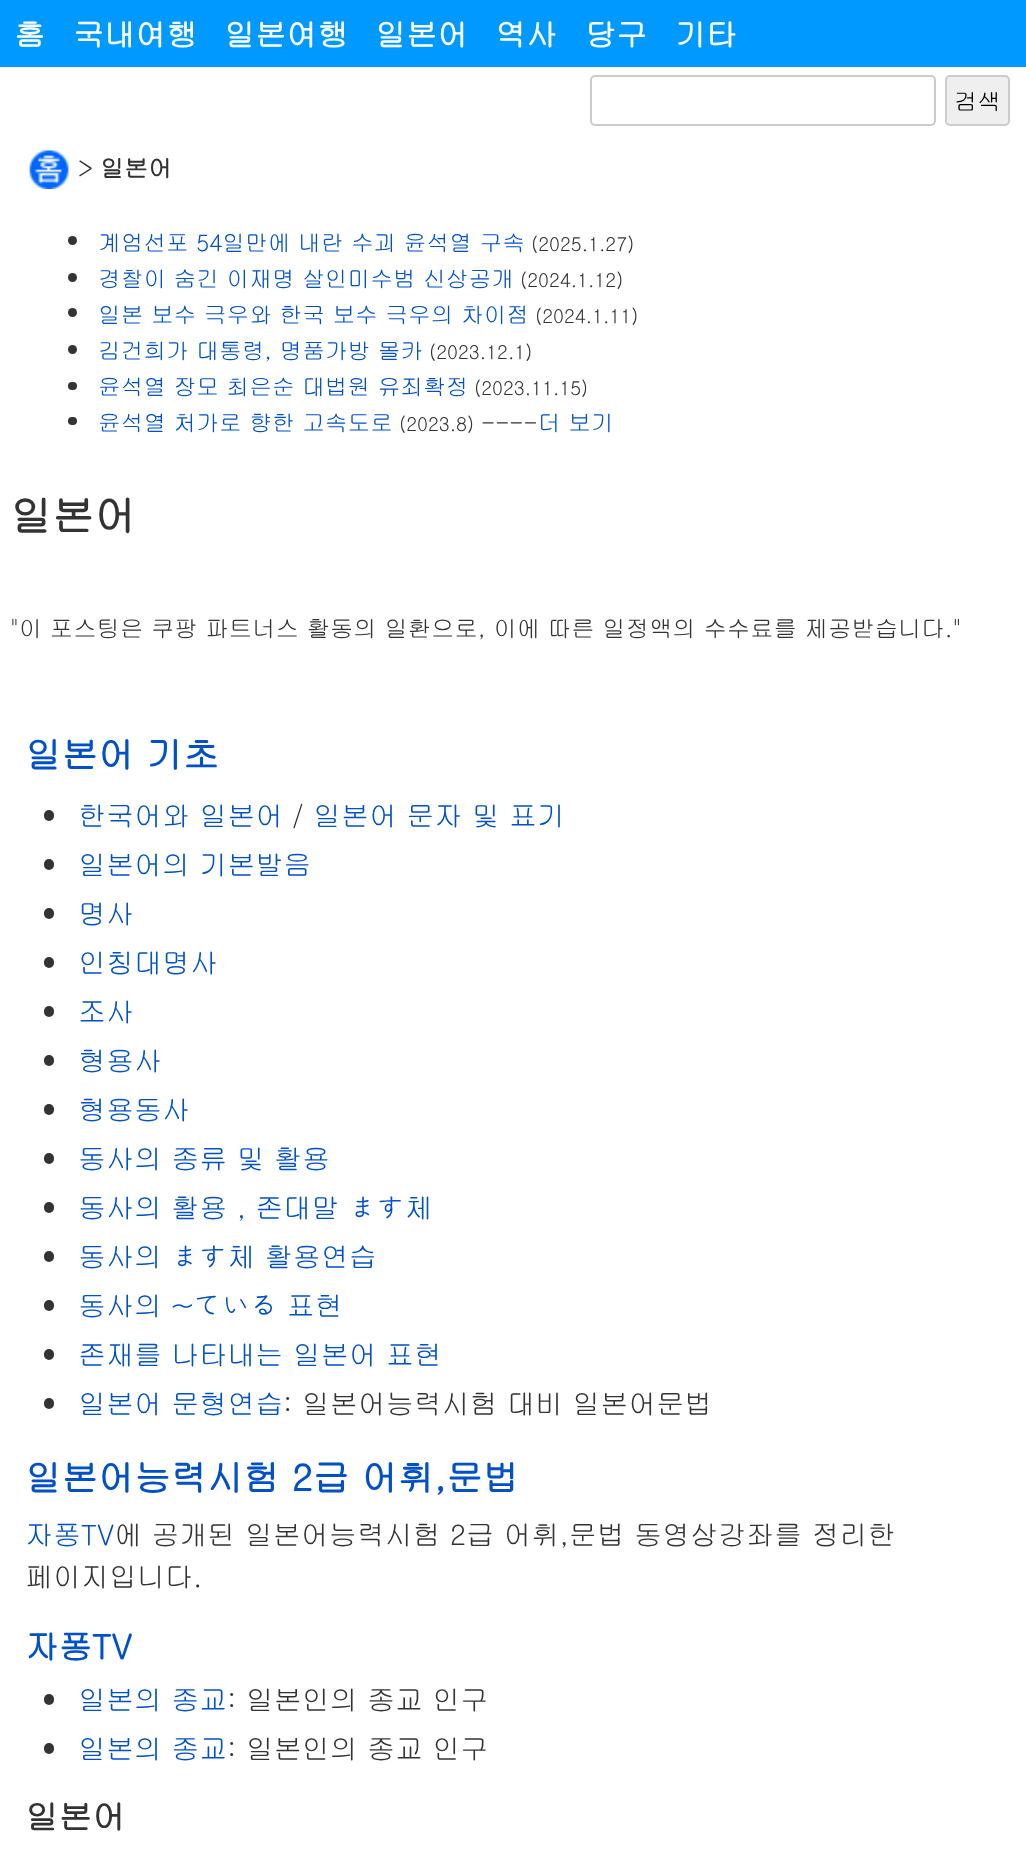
<svg xmlns="http://www.w3.org/2000/svg" width="1026" height="1857">
<rect width="100%" height="100%" fill="#fff"/>
<rect width="1026" height="67" fill="#09f"/>
<text x="14" y="46" style="font-family:Gulim;font-size:31px;font-weight:bold;fill:#fff">홈</text>
<text x="73" y="46" style="font-family:Gulim;font-size:31px;font-weight:bold;fill:#fff">국내여행</text>
<text x="224" y="46" style="font-family:Gulim;font-size:31px;font-weight:bold;fill:#fff">일본여행</text>
<text x="375" y="46" style="font-family:Gulim;font-size:31px;font-weight:bold;fill:#fff">일본어</text>
<text x="495" y="46" style="font-family:Gulim;font-size:31px;font-weight:bold;fill:#fff">역사</text>
<text x="585" y="46" style="font-family:Gulim;font-size:31px;font-weight:bold;fill:#fff">당구</text>
<text x="675" y="46" style="font-family:Gulim;font-size:31px;font-weight:bold;fill:#fff">기타</text>
<rect x="591" y="76" width="344" height="49" rx="4" fill="none" stroke="#ccc" stroke-width="2"/>
<rect x="946" y="76" width="63" height="49" rx="4" fill="#efefef" stroke="#ccc" stroke-width="2"/>
<text x="954" y="110" style="font-family:Gulim;font-size:23.35px;fill:#000">검색</text>
<image x="29" y="150" width="40" height="39" href="media/1.png"/>
<text x="78" y="177" style="font-family:Gulim;font-size:24px;fill:#333">&gt;</text>
<text x="100" y="177" style="font-family:Gulim;font-size:24px;font-weight:bold;fill:#333">일본어</text>
<circle cx="72.5" cy="240.5" r="4.5" fill="#333"/>
<text x="98" y="251" style="font-family:Gulim;font-size:22.7px;fill:#0050c8">계엄선포 54일만에 내란 수괴 윤석열 구속</text>
<text x="531" y="251" style="font-family:Gulim;font-size:19px;fill:#333">(2025.1.27)</text>
<circle cx="72.5" cy="277.5" r="4.5" fill="#333"/>
<text x="98" y="287" style="font-family:Gulim;font-size:22.7px;fill:#0050c8">경찰이 숨긴 이재명 살인미수범 신상공개</text>
<text x="520" y="287" style="font-family:Gulim;font-size:19px;fill:#333">(2024.1.12)</text>
<circle cx="72.5" cy="312.5" r="4.5" fill="#333"/>
<text x="98" y="323" style="font-family:Gulim;font-size:22.7px;fill:#0050c8">일본 보수 극우와 한국 보수 극우의 차이점</text>
<text x="535" y="323" style="font-family:Gulim;font-size:19px;fill:#333">(2024.1.11)</text>
<circle cx="72.5" cy="349.5" r="4.5" fill="#333"/>
<text x="98" y="359" style="font-family:Gulim;font-size:22.7px;fill:#0050c8">김건희가 대통령, 명품가방 몰카</text>
<text x="429" y="359" style="font-family:Gulim;font-size:19px;fill:#333">(2023.12.1)</text>
<rect x="68" y="382" width="9" height="8" rx="4" fill="#333"/>
<text x="98" y="395" style="font-family:Gulim;font-size:22.7px;fill:#0050c8">윤석열 장모 최은순 대법원 유죄확정</text>
<text x="474" y="395" style="font-family:Gulim;font-size:19px;fill:#333">(2023.11.15)</text>
<rect x="68" y="417" width="9" height="8" rx="4" fill="#333"/>
<text x="98" y="431" style="font-family:Gulim;font-size:22.7px;fill:#0050c8">윤석열 처가로 향한 고속도로</text>
<text x="399" y="431" style="font-family:Gulim;font-size:19px;fill:#333">(2023.8)</text>
<text x="481" y="431" style="font-family:Gulim;font-size:22.7px;fill:#333">----</text>
<text x="538" y="431" style="font-family:Gulim;font-size:22.7px;fill:#0050c8">더 보기</text>
<text x="10" y="531" style="font-family:Gulim;font-size:42px;font-weight:bold;fill:#333">일본어</text>
<text x="10" y="637" style="font-family:Gulim;font-size:23.35px;fill:#333">"이 포스팅은 쿠팡 파트너스 활동의 일환으로, 이에 따른 일정액의 수수료를 제공받습니다."</text>
<text x="25" y="768" style="font-family:Gulim;font-size:36.4px;font-weight:bold;fill:#0050c8">일본어 기초</text>
<rect x="44" y="810" width="10" height="11" rx="5" fill="#333"/>
<text x="78" y="826" style="font-family:Gulim;font-size:28px;fill:#0050c8">한국어와 일본어</text>
<text x="292" y="826" style="font-family:Gulim;font-size:28px;fill:#333">/</text>
<text x="313" y="826" style="font-family:Gulim;font-size:28px;fill:#0050c8">일본어 문자 및 표기</text>
<rect x="44" y="859" width="10" height="11" rx="5" fill="#333"/>
<text x="78" y="875" style="font-family:Gulim;font-size:28px;fill:#0050c8">일본어의 기본발음</text>
<rect x="44" y="908" width="10" height="11" rx="5" fill="#333"/>
<text x="78" y="924" style="font-family:Gulim;font-size:28px;fill:#0050c8">명사</text>
<rect x="44" y="957" width="10" height="11" rx="5" fill="#333"/>
<text x="78" y="973" style="font-family:Gulim;font-size:28px;fill:#0050c8">인칭대명사</text>
<rect x="44" y="1006" width="10" height="11" rx="5" fill="#333"/>
<text x="78" y="1022" style="font-family:Gulim;font-size:28px;fill:#0050c8">조사</text>
<rect x="44" y="1055" width="10" height="11" rx="5" fill="#333"/>
<text x="78" y="1071" style="font-family:Gulim;font-size:28px;fill:#0050c8">형용사</text>
<rect x="44" y="1104" width="10" height="11" rx="5" fill="#333"/>
<text x="78" y="1120" style="font-family:Gulim;font-size:28px;fill:#0050c8">형용동사</text>
<rect x="44" y="1153" width="10" height="11" rx="5" fill="#333"/>
<text x="78" y="1169" style="font-family:Gulim;font-size:28px;fill:#0050c8">동사의 종류 및 활용</text>
<rect x="44" y="1202" width="10" height="11" rx="5" fill="#333"/>
<text x="78" y="1218" style="font-family:Gulim;font-size:28px;fill:#0050c8">동사의 활용 , 존대말 ます체</text>
<rect x="44" y="1251" width="10" height="11" rx="5" fill="#333"/>
<text x="78" y="1267" style="font-family:Gulim;font-size:28px;fill:#0050c8">동사의 ます체 활용연습</text>
<rect x="44" y="1300" width="10" height="11" rx="5" fill="#333"/>
<text x="78" y="1316" style="font-family:Gulim;font-size:28px;fill:#0050c8">동사의 ~ている 표현</text>
<rect x="44" y="1349" width="10" height="11" rx="5" fill="#333"/>
<text x="78" y="1365" style="font-family:Gulim;font-size:28px;fill:#0050c8">존재를 나타내는 일본어 표현</text>
<rect x="44" y="1398" width="10" height="11" rx="5" fill="#333"/>
<text x="78" y="1414" style="font-family:Gulim;font-size:28px;fill:#0050c8">일본어 문형연습</text>
<text x="283" y="1414" style="font-family:Gulim;font-size:28px;fill:#333">: 일본어능력시험 대비 일본어문법</text>
<text x="25" y="1491" style="font-family:Gulim;font-size:36.4px;font-weight:bold;fill:#0050c8">일본어능력시험 2급 어휘,문법</text>
<text x="25" y="1545" style="font-family:Gulim;font-size:28px;fill:#0050c8">자퐁TV</text>
<text x="114" y="1545" style="font-family:Gulim;font-size:28px;fill:#333">에 공개된 일본어능력시험 2급 어휘,문법 동영상강좌를 정리한</text>
<text x="25" y="1587" style="font-family:Gulim;font-size:28px;fill:#333">페이지입니다.</text>
<text x="25" y="1659" style="font-family:Gulim;font-size:33.5px;font-weight:bold;fill:#0050c8">자퐁TV</text>
<rect x="44" y="1694" width="10" height="11" rx="5" fill="#333"/>
<text x="78" y="1710" style="font-family:Gulim;font-size:28px;fill:#0050c8">일본의 종교</text>
<text x="227" y="1710" style="font-family:Gulim;font-size:28px;fill:#333">: 일본인의 종교 인구</text>
<rect x="44" y="1743" width="10" height="11" rx="5" fill="#333"/>
<text x="78" y="1759" style="font-family:Gulim;font-size:28px;fill:#0050c8">일본의 종교</text>
<text x="227" y="1759" style="font-family:Gulim;font-size:28px;fill:#333">: 일본인의 종교 인구</text>
<text x="25" y="1829" style="font-family:Gulim;font-size:33.5px;font-weight:bold;fill:#333">일본어</text>
</svg>
